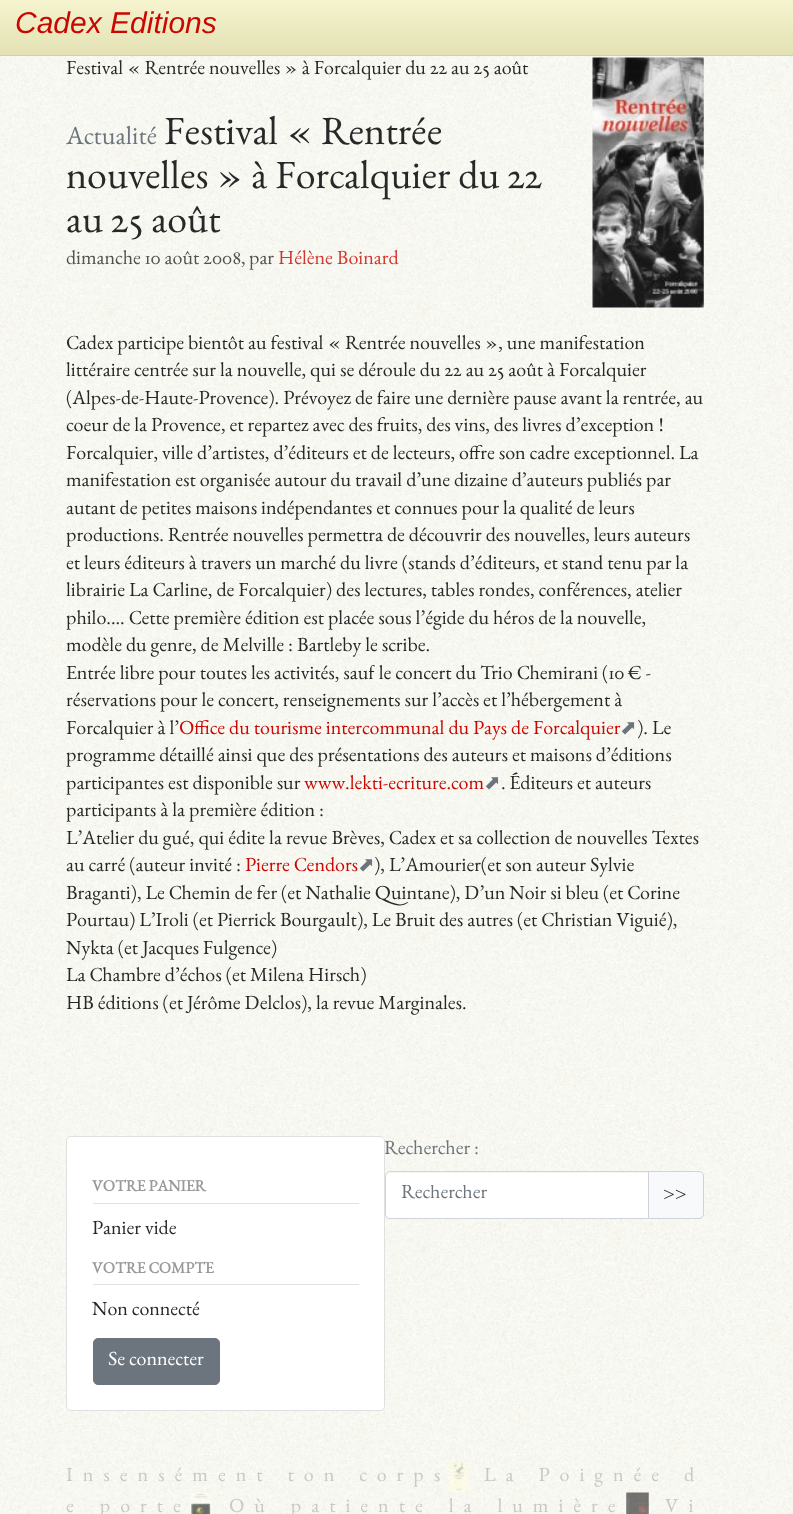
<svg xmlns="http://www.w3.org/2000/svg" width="793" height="1514">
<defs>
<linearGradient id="g1" gradientUnits="userSpaceOnUse" x1="397" y1="0" x2="397" y2="55"><stop offset="0" stop-color="#f5f4ce"/><stop offset="1" stop-color="#e3e1b4"/></linearGradient>
<clipPath id="clip1"><rect x="401" y="1185" width="213" height="21"/></clipPath>
</defs>
<rect width="100%" height="100%" fill="#fff"/>
<image x="0" y="56" width="793" height="1458" href="media/1.png"/>
<rect width="793" height="55" fill="url(#g1)"/>
<rect y="55" width="793" height="1" fill="#ccc"/>
<text x="15" y="33" style="font-family:Liberation Sans;font-size:30px;font-style:italic;fill:#ca0600">Cadex Editions</text>
<text x="66" y="74" style="font-family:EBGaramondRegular;font-size:20px;fill:#282828">Festival « Rentrée nouvelles » à Forcalquier du 22 au 25 août</text>
<image x="592" y="57" width="112" height="251" href="media/2.png"/>
<text x="66" y="144" style="font-family:EBGaramondRegular;font-size:26px;fill:#6c757d">Actualité</text>
<text x="164" y="144" style="font-family:EBGaramondRegular;font-size:40px;fill:#282828">Festival « Rentrée</text>
<text x="66" y="188" style="font-family:EBGaramondRegular;font-size:40px;fill:#282828">nouvelles » à Forcalquier du 22</text>
<text x="66" y="232" style="font-family:EBGaramondRegular;font-size:40px;fill:#282828">au 25 août</text>
<text x="66" y="264" style="font-family:EBGaramondRegular;font-size:20px;fill:#515150">dimanche 10 août 2008</text>
<text x="241" y="264" style="font-family:EBGaramondRegular;font-size:20px;fill:#515150">,</text>
<text x="249" y="264" style="font-family:EBGaramondRegular;font-size:20px;fill:#515150">par</text>
<text x="278" y="264" style="font-family:EBGaramondRegular;font-size:20px;fill:#d33630">Hélène Boinard</text>
<text x="66" y="349" style="font-family:EBGaramondRegular;font-size:20px;fill:#282828">Cadex participe bientôt au festival « Rentrée nouvelles », une manifestation</text>
<text x="66" y="376" style="font-family:EBGaramondRegular;font-size:20px;fill:#282828">littéraire centrée sur la nouvelle, qui se déroule du 22 au 25 août à Forcalquier</text>
<text x="66" y="404" style="font-family:EBGaramondRegular;font-size:20px;fill:#282828">(Alpes-de-Haute-Provence). Prévoyez de faire une dernière pause avant la rentrée, au</text>
<text x="66" y="431" style="font-family:EBGaramondRegular;font-size:20px;fill:#282828">coeur de la Provence, et repartez avec des fruits, des vins, des livres d’exception !</text>
<text x="66" y="459" style="font-family:EBGaramondRegular;font-size:20px;fill:#282828">Forcalquier, ville d’artistes, d’éditeurs et de lecteurs, offre son cadre exceptionnel. La</text>
<text x="66" y="486" style="font-family:EBGaramondRegular;font-size:20px;fill:#282828">manifestation est organisée autour du travail d’une dizaine d’auteurs publiés par</text>
<text x="66" y="514" style="font-family:EBGaramondRegular;font-size:20px;fill:#282828">autant de petites maisons indépendantes et connues pour la qualité de leurs</text>
<text x="66" y="541" style="font-family:EBGaramondRegular;font-size:20px;fill:#282828">productions. Rentrée nouvelles permettra de découvrir des nouvelles, leurs auteurs</text>
<text x="66" y="569" style="font-family:EBGaramondRegular;font-size:20px;fill:#282828">et leurs éditeurs à travers un marché du livre (stands d’éditeurs, et stand tenu par la</text>
<text x="66" y="596" style="font-family:EBGaramondRegular;font-size:20px;fill:#282828">librairie La Carline, de Forcalquier) des lectures, tables rondes, conférences, atelier</text>
<text x="66" y="624" style="font-family:EBGaramondRegular;font-size:20px;fill:#282828">philo.... Cette première édition est placée sous l’égide du héros de la nouvelle,</text>
<text x="66" y="651" style="font-family:EBGaramondRegular;font-size:20px;fill:#282828">modèle du genre, de Melville : Bartleby le scribe.</text>
<text x="66" y="679" style="font-family:EBGaramondRegular;font-size:20px;fill:#282828">Entrée libre pour toutes les activités, sauf le concert du Trio Chemirani (10 € -</text>
<text x="66" y="706" style="font-family:EBGaramondRegular;font-size:20px;fill:#282828">réservations pour le concert, renseignements sur l’accès et l’hébergement à</text>
<text x="66" y="734" style="font-family:EBGaramondRegular;font-size:20px;fill:#282828">Forcalquier à l’</text>
<text x="179" y="734" style="font-family:EBGaramondRegular;font-size:20px;fill:#ca0600">Office du tourisme intercommunal du Pays de Forcalquier</text>
<text x="620" y="734" style="font-family:DejaVu Sans;font-size:20px;fill:#6c757d">⬈</text>
<text x="637" y="734" style="font-family:EBGaramondRegular;font-size:20px;fill:#282828">). Le</text>
<text x="66" y="761" style="font-family:EBGaramondRegular;font-size:20px;fill:#282828">programme détaillé ainsi que des présentations des auteurs et maisons d’éditions</text>
<text x="66" y="789" style="font-family:EBGaramondRegular;font-size:20px;fill:#282828">participantes est disponible sur</text>
<text x="304" y="789" style="font-family:EBGaramondRegular;font-size:20px;fill:#ca0600">www.lekti-ecriture.com</text>
<text x="484" y="789" style="font-family:DejaVu Sans;font-size:20px;fill:#6c757d">⬈</text>
<text x="501" y="789" style="font-family:EBGaramondRegular;font-size:20px;fill:#282828">. Éditeurs et auteurs</text>
<text x="66" y="816" style="font-family:EBGaramondRegular;font-size:20px;fill:#282828">participants à la première édition :</text>
<text x="66" y="844" style="font-family:EBGaramondRegular;font-size:20px;fill:#282828">L’Atelier du gué, qui édite la revue Brèves, Cadex et sa collection de nouvelles Textes</text>
<text x="66" y="871" style="font-family:EBGaramondRegular;font-size:20px;fill:#282828">au carré (auteur invité :</text>
<text x="245" y="871" style="font-family:EBGaramondRegular;font-size:20px;fill:#ca0600">Pierre Cendors</text>
<text x="358" y="871" style="font-family:DejaVu Sans;font-size:20px;fill:#6c757d">⬈</text>
<text x="374" y="871" style="font-family:EBGaramondRegular;font-size:20px;fill:#282828">), L’Amourier(et son auteur Sylvie</text>
<text x="66" y="899" style="font-family:EBGaramondRegular;font-size:20px;fill:#282828">Braganti), Le Chemin de fer (et Nathalie Quintane), D’un Noir si bleu (et Corine</text>
<text x="66" y="926" style="font-family:EBGaramondRegular;font-size:20px;fill:#282828">Pourtau) L’Iroli (et Pierrick Bourgault), Le Bruit des autres (et Christian Viguié),</text>
<text x="66" y="954" style="font-family:EBGaramondRegular;font-size:20px;fill:#282828">Nykta (et Jacques Fulgence)</text>
<text x="66" y="981" style="font-family:EBGaramondRegular;font-size:20px;fill:#282828">La Chambre d’échos (et Milena Hirsch)</text>
<text x="66" y="1009" style="font-family:EBGaramondRegular;font-size:20px;fill:#282828">HB éditions (et Jérôme Delclos), la revue Marginales.</text>
<text x="384" y="1154" style="font-family:EBGaramondRegular;font-size:20px;fill:#6c757d">Rechercher :</text>
<path d="M390 1173h258v45h-258c-2 0-4-2-4-4v-37c0-2 2-4 4-4z" fill="#fff"/>
<path d="M390 1171.5h258.5v47h-258.5c-2.5 0-4.5-2-4.5-4.5v-38c0-2.5 2-4.5 4.5-4.5z" fill="none" stroke="#ced4da"/>
<g clip-path="url(#clip1)">
<text x="401" y="1198" style="font-family:EBGaramondRegular;font-size:20px;fill:#6c757d">Rechercher</text>
</g>
<path d="M648.5 1171.5h50.5c2.5 0 4.5 2 4.5 4.5v38c0 2.5-2 4.5-4.5 4.5h-50.5z" fill="#f8f9fa" stroke="#ced4da"/>
<text x="663" y="1199" style="font-family:EBGaramondRegular;font-size:20px;fill:#212529">&gt;&gt;</text>
<rect x="66" y="1136" width="319" height="275" rx="5" fill="#fff"/>
<rect x="66.5" y="1136.5" width="318" height="274" rx="4.5" fill="none" stroke="#0000001f"/>
<rect x="93" y="1203" width="266" height="1" fill="#e0e2e0"/>
<text x="92" y="1191" style="font-family:EBGaramondRegular;font-size:16px;font-weight:bold;fill:#999">VOTRE PANIER</text>
<text x="92" y="1234" style="font-family:EBGaramondRegular;font-size:20px;fill:#282828">Panier vide</text>
<rect x="93" y="1284" width="266" height="1" fill="#e0e2e0"/>
<text x="92" y="1273" style="font-family:EBGaramondRegular;font-size:16px;font-weight:bold;fill:#999">VOTRE COMPTE</text>
<text x="92" y="1315" style="font-family:EBGaramondRegular;font-size:20px;fill:#282828">Non connecté</text>
<rect x="93.5" y="1338.5" width="126" height="46" rx="4.5" fill="#6c757d" stroke="#6c757d"/>
<text x="108" y="1365" style="font-family:EBGaramondRegular;font-size:20px;fill:#fff">Se connecter</text>
<text x="66" y="1481" word-spacing="1" style="font-family:EBGaramondRegular;font-size:20px;letter-spacing:10px;fill:#c8c8c5">Insensément ton corps</text>
<image x="448" y="1461" width="21" height="32" href="media/3.png"/>
<text x="484" y="1481" word-spacing="1" style="font-family:EBGaramondRegular;font-size:20px;letter-spacing:10px;fill:#c8c8c5">La Poignée d</text>
<text x="66" y="1512" word-spacing="2" style="font-family:EBGaramondRegular;font-size:20px;letter-spacing:10px;fill:#c8c8c5">e porte</text>
<image x="190" y="1492" width="22" height="22" href="media/4.png"/>
<text x="229" y="1512" word-spacing="2" style="font-family:EBGaramondRegular;font-size:20px;letter-spacing:10px;fill:#c8c8c5">Où patiente la lumière</text>
<image x="626" y="1492" width="23" height="22" href="media/5.png"/>
<text x="665" y="1512" style="font-family:EBGaramondRegular;font-size:20px;letter-spacing:10px;fill:#c8c8c5">Vi</text>
</svg>
